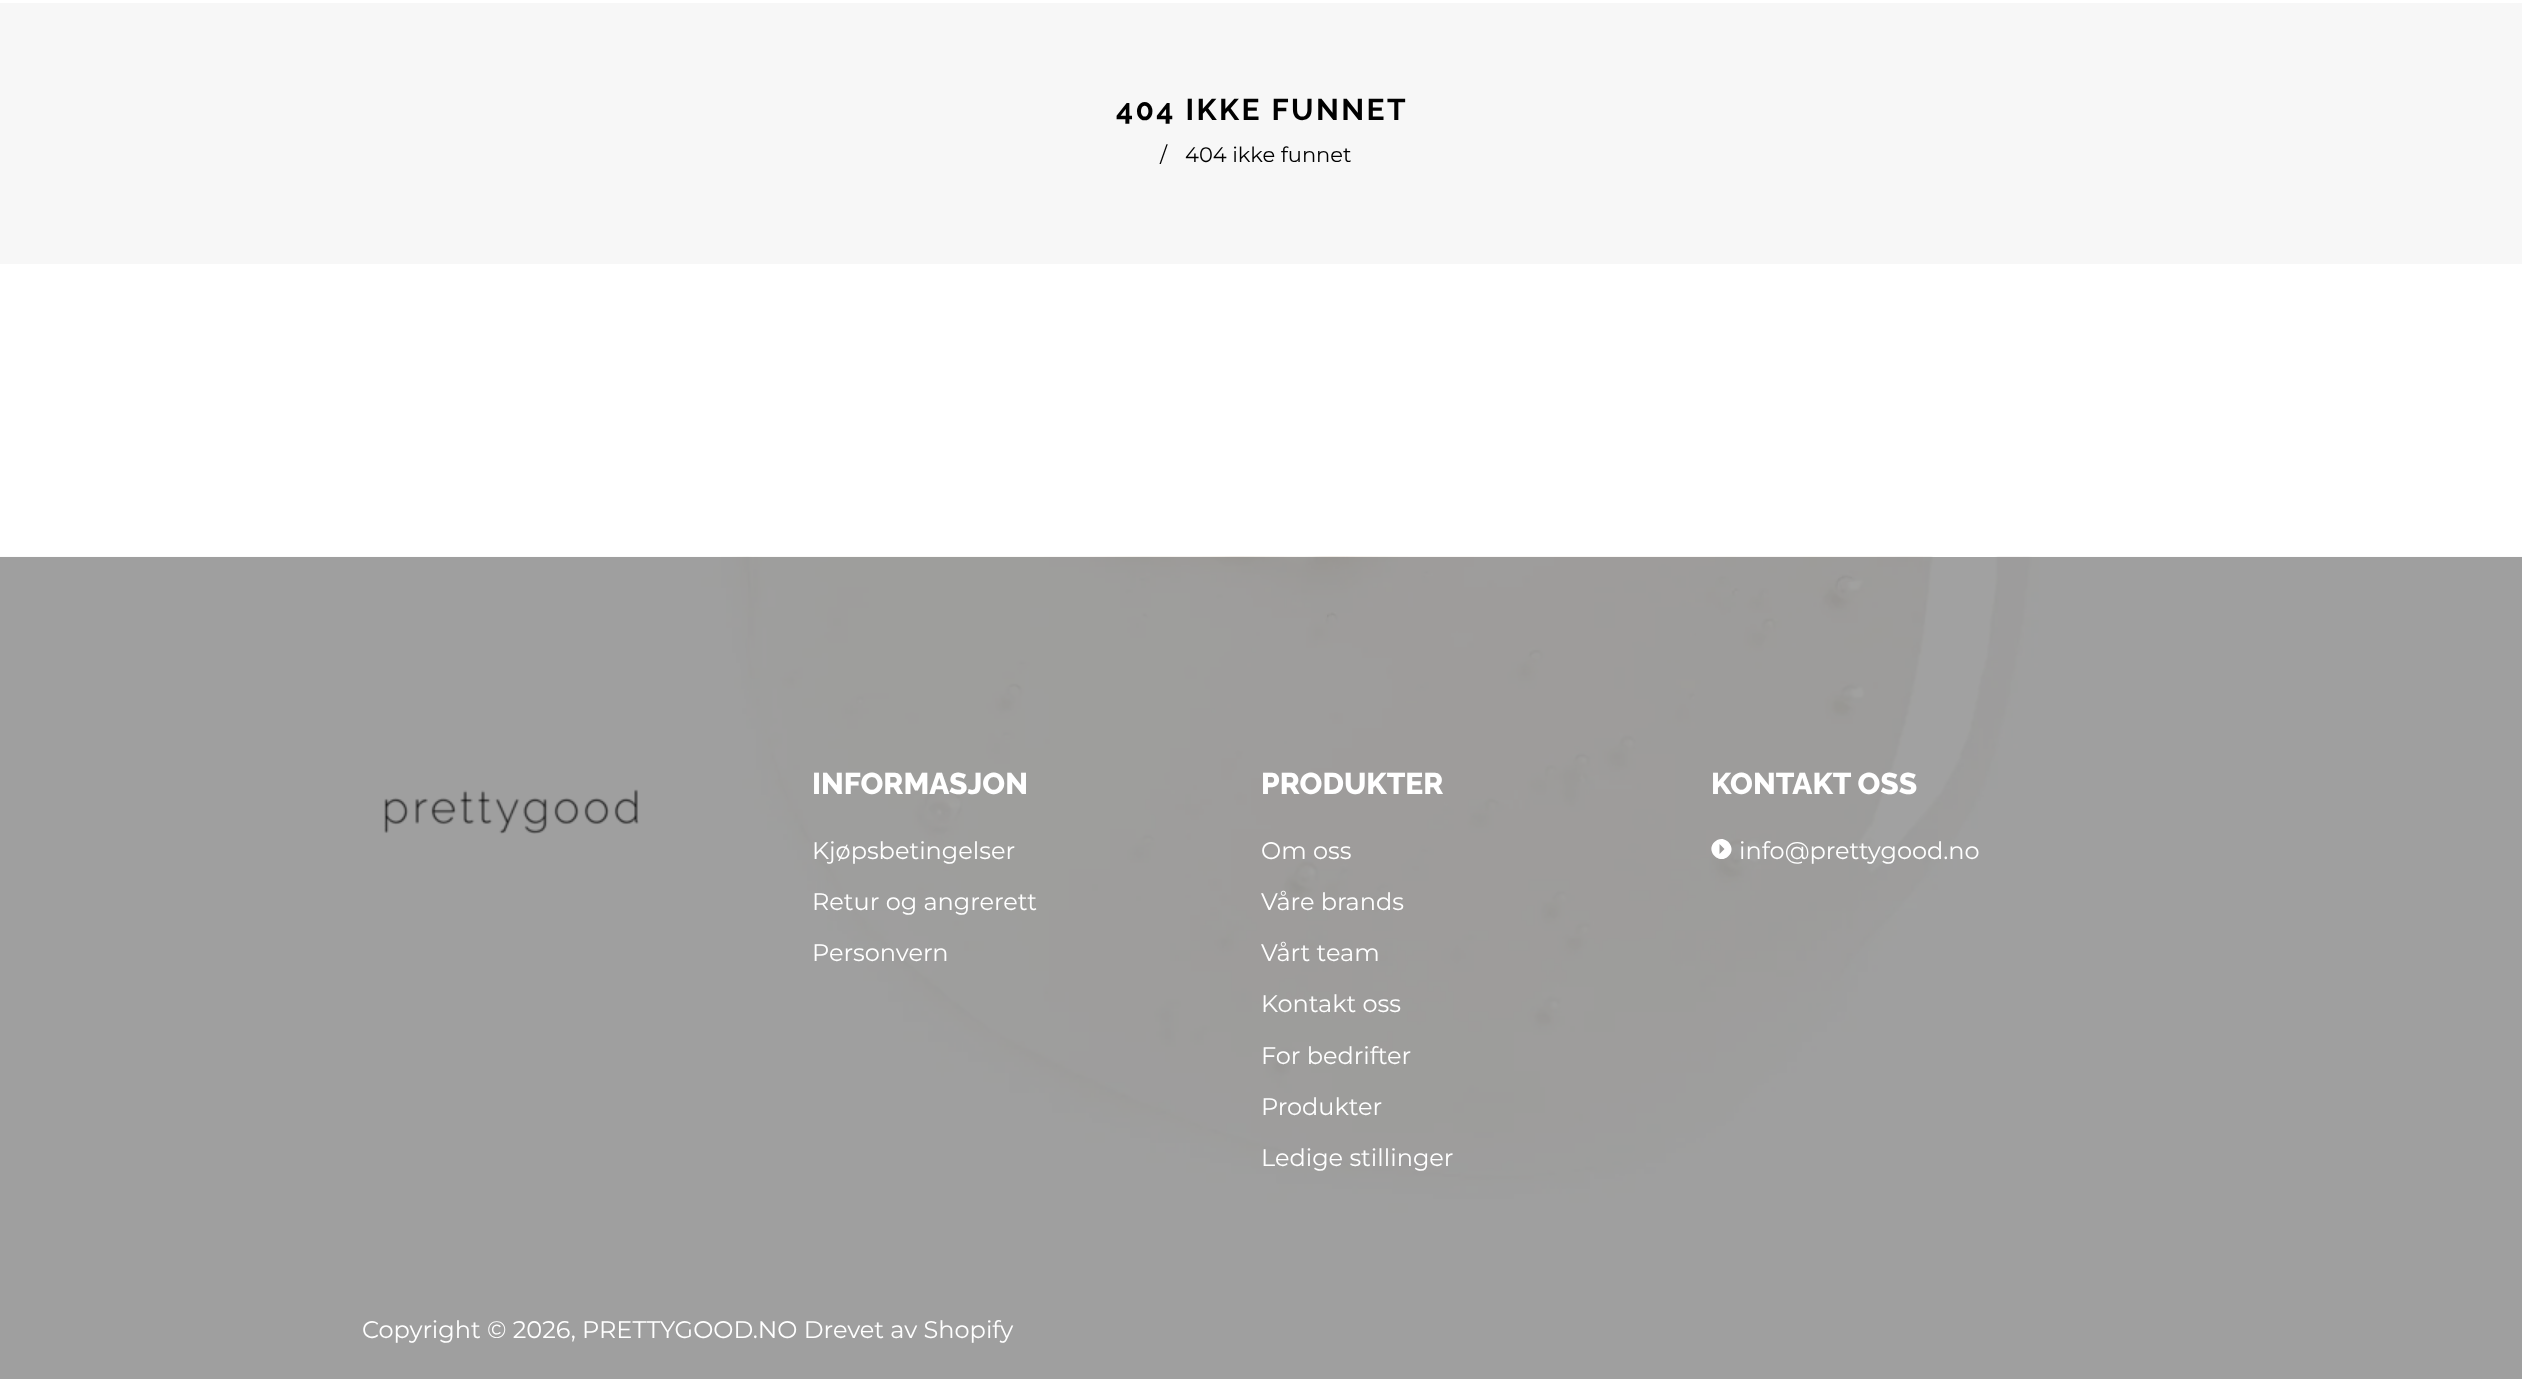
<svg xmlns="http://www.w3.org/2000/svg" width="2522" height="1379">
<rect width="100%" height="100%" fill="#fff"/>
<rect y="3" width="2522" height="261" fill="#f7f7f7"/>
<text x="1116" y="120" style="font-family:Raleway;font-size:30px;font-weight:bold;letter-spacing:2.4px;fill:#000">404 IKKE FUNNET</text>
<text x="1160" y="162" style="font-family:Montserrat;font-size:21px;fill:#000">/</text>
<text x="1185" y="162" style="font-family:Montserrat;font-size:21px;fill:#000">404 ikke funnet</text>
<image x="0" y="556" width="2522" height="823" href="media/1.png"/>
<rect y="557" width="2522" height="120" fill="#797979b3"/>
<rect y="677" width="2522" height="702" fill="#797979b3"/>
<image x="384" y="789" width="255" height="45" href="media/2.png"/>
<text x="812" y="794" style="font-family:Raleway;font-size:30px;font-weight:800;fill:#fff">INFORMASJON</text>
<text x="812" y="859" style="font-family:Montserrat;font-size:24px;fill:#fff">Kjøpsbetingelser</text>
<text x="812" y="910" style="font-family:Montserrat;font-size:24px;fill:#fff">Retur og angrerett</text>
<text x="812" y="961" style="font-family:Montserrat;font-size:24px;fill:#fff">Personvern</text>
<text x="1261" y="794" style="font-family:Raleway;font-size:30px;font-weight:800;fill:#fff">PRODUKTER</text>
<text x="1261" y="859" style="font-family:Montserrat;font-size:24px;fill:#fff">Om oss</text>
<text x="1261" y="910" style="font-family:Montserrat;font-size:24px;fill:#fff">Våre brands</text>
<text x="1261" y="961" style="font-family:Montserrat;font-size:24px;fill:#fff">Vårt team</text>
<text x="1261" y="1012" style="font-family:Montserrat;font-size:24px;fill:#fff">Kontakt oss</text>
<text x="1261" y="1064" style="font-family:Montserrat;font-size:24px;fill:#fff">For bedrifter</text>
<text x="1261" y="1115" style="font-family:Montserrat;font-size:24px;fill:#fff">Produkter</text>
<text x="1261" y="1166" style="font-family:Montserrat;font-size:24px;fill:#fff">Ledige stillinger</text>
<text x="1711" y="794" style="font-family:Raleway;font-size:30px;font-weight:800;fill:#fff">KONTAKT OSS</text>
<path d="M1714.5 842c9-9.5 23.5 5 14 14c-9 9.5-23.5-5-14-14zm5 2v10l5-5z" fill="#fff"/>
<text x="1739" y="859" style="font-family:Montserrat;font-size:24px;fill:#fff">info@prettygood.no</text>
<text x="362" y="1338" style="font-family:Montserrat;font-size:24px;fill:#fff">Copyright © 2026, PRETTYGOOD.NO Drevet av Shopify</text>
</svg>
